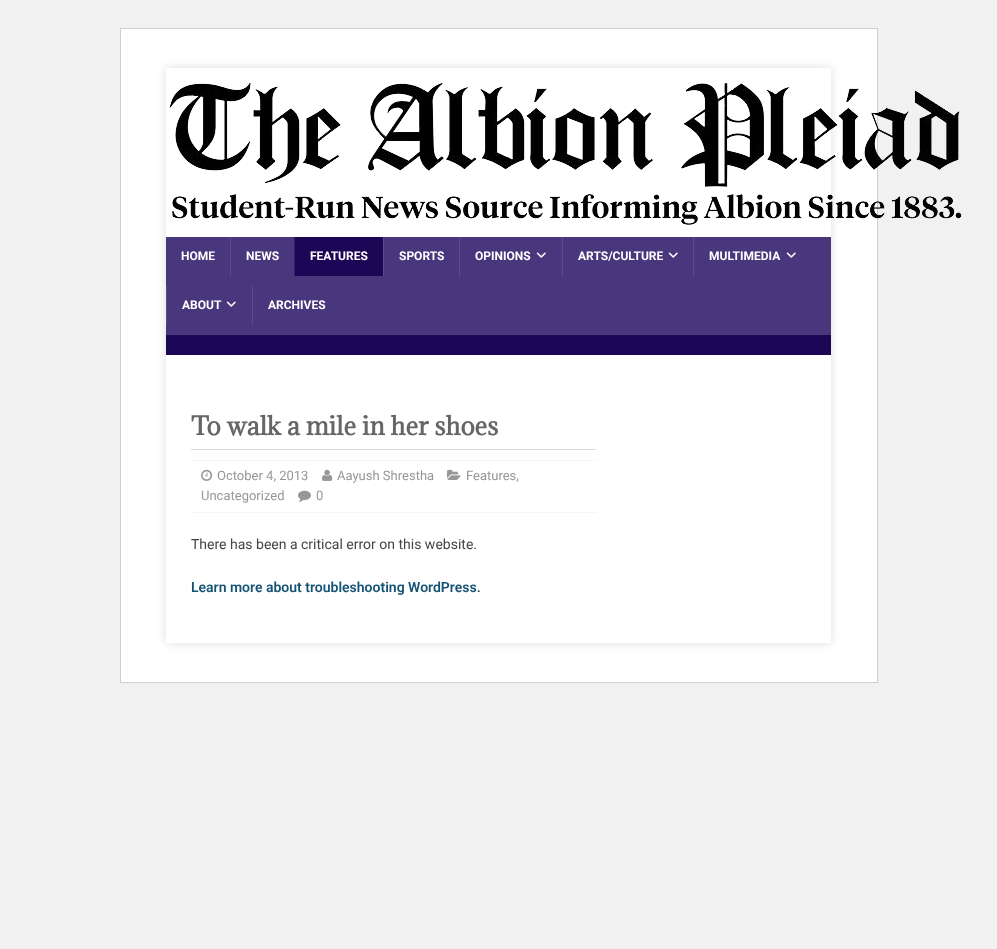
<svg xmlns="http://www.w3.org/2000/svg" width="997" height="949">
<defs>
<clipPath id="clip1"><path d="M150 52h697v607h-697zm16 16h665v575h-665z" clip-rule="evenodd"/></clipPath>
</defs>
<rect width="100%" height="100%" fill="#f1f1f1"/>
<rect x="120.5" y="28.5" width="757" height="654" fill="#fff" stroke="#ccd0d4"/>
<g clip-path="url(#clip1)">
<rect x="166" y="68" width="665" height="575" fill="#3232322b" filter="blur(5px)"/>
</g>
<image x="169" y="83" width="793" height="142" href="media/1.png"/>
<rect x="166" y="237" width="665" height="98" fill="#49377d"/>
<rect x="166" y="335" width="665" height="20" fill="#1c0756"/>
<text x="181" y="260" style="font-family:Roboto;font-size:12px;font-weight:bold;fill:#fff">HOME</text>
<rect x="230" y="237" width="1" height="39" fill="#5b4b8a"/>
<text x="246" y="260" style="font-family:Roboto;font-size:12px;font-weight:bold;fill:#fff">NEWS</text>
<rect x="295" y="237" width="88" height="39" fill="#1c0756"/>
<rect x="294" y="237" width="1" height="39" fill="#332067"/>
<text x="310" y="260" style="font-family:Roboto;font-size:12px;font-weight:bold;fill:#fff">FEATURES</text>
<rect x="383" y="237" width="1" height="39" fill="#5b4b8a"/>
<text x="399" y="260" style="font-family:Roboto;font-size:12px;font-weight:bold;fill:#fff">SPORTS</text>
<rect x="459" y="237" width="1" height="39" fill="#5b4b8a"/>
<text x="475" y="260" style="font-family:Roboto;font-size:12px;font-weight:bold;fill:#fff">OPINIONS</text>
<image x="536" y="252" width="10" height="6" href="media/2.png"/>
<rect x="562" y="237" width="1" height="39" fill="#5b4b8a"/>
<text x="578" y="260" style="font-family:Roboto;font-size:12px;font-weight:bold;fill:#fff">ARTS/CULTURE</text>
<image x="668" y="252" width="10" height="6" href="media/2.png"/>
<rect x="693" y="237" width="1" height="39" fill="#5b4b8a"/>
<text x="709" y="260" style="font-family:Roboto;font-size:12px;font-weight:bold;fill:#fff">MULTIMEDIA</text>
<image x="786" y="252" width="10" height="6" href="media/2.png"/>
<rect x="166" y="286" width="1" height="39" fill="#5b4b8a"/>
<text x="182" y="309" style="font-family:Roboto;font-size:12px;font-weight:bold;fill:#fff">ABOUT</text>
<image x="226" y="301" width="10" height="6" href="media/2.png"/>
<rect x="252" y="286" width="1" height="39" fill="#5b4b8a"/>
<text x="268" y="309" style="font-family:Roboto;font-size:12px;font-weight:bold;fill:#fff">ARCHIVES</text>
<rect x="191" y="449" width="405" height="1" fill="#dadada"/>
<text x="191" y="435" style="font-family:Adamina;font-size:24px;font-weight:bold;fill:#666">To walk a mile in her shoes</text>
<path d="M191 460.5h405" fill="none" stroke="#ebebeb" stroke-dasharray="1 1"/>
<path d="M191 512.5h405" fill="none" stroke="#ebebeb" stroke-dasharray="1 1"/>
<image x="447" y="469" width="14" height="11" href="media/3.png"/>
<text x="466" y="480" style="font-family:Roboto;font-size:13px;fill:#979797">Features,</text>
<text x="201" y="500" style="font-family:Roboto;font-size:13px;fill:#979797">Uncategorized</text>
<image x="201" y="469" width="12" height="12" href="media/4.png"/>
<text x="217" y="480" style="font-family:Roboto;font-size:13px;fill:#979797">October 4, 2013</text>
<image x="322" y="469" width="11" height="12" href="media/5.png"/>
<text x="337" y="480" style="font-family:Roboto;font-size:13px;fill:#979797">Aayush Shrestha</text>
<image x="298" y="490" width="13" height="12" href="media/6.png"/>
<text x="316" y="500" style="font-family:Roboto;font-size:13px;fill:#979797">0</text>
<text x="191" y="549" style="font-family:Roboto;font-size:14px;fill:#444">There has been a critical error on this website.</text>
<text x="191" y="592" style="font-family:Roboto;font-size:14px;font-weight:600;fill:#155374">Learn more about troubleshooting WordPress.</text>
</svg>
